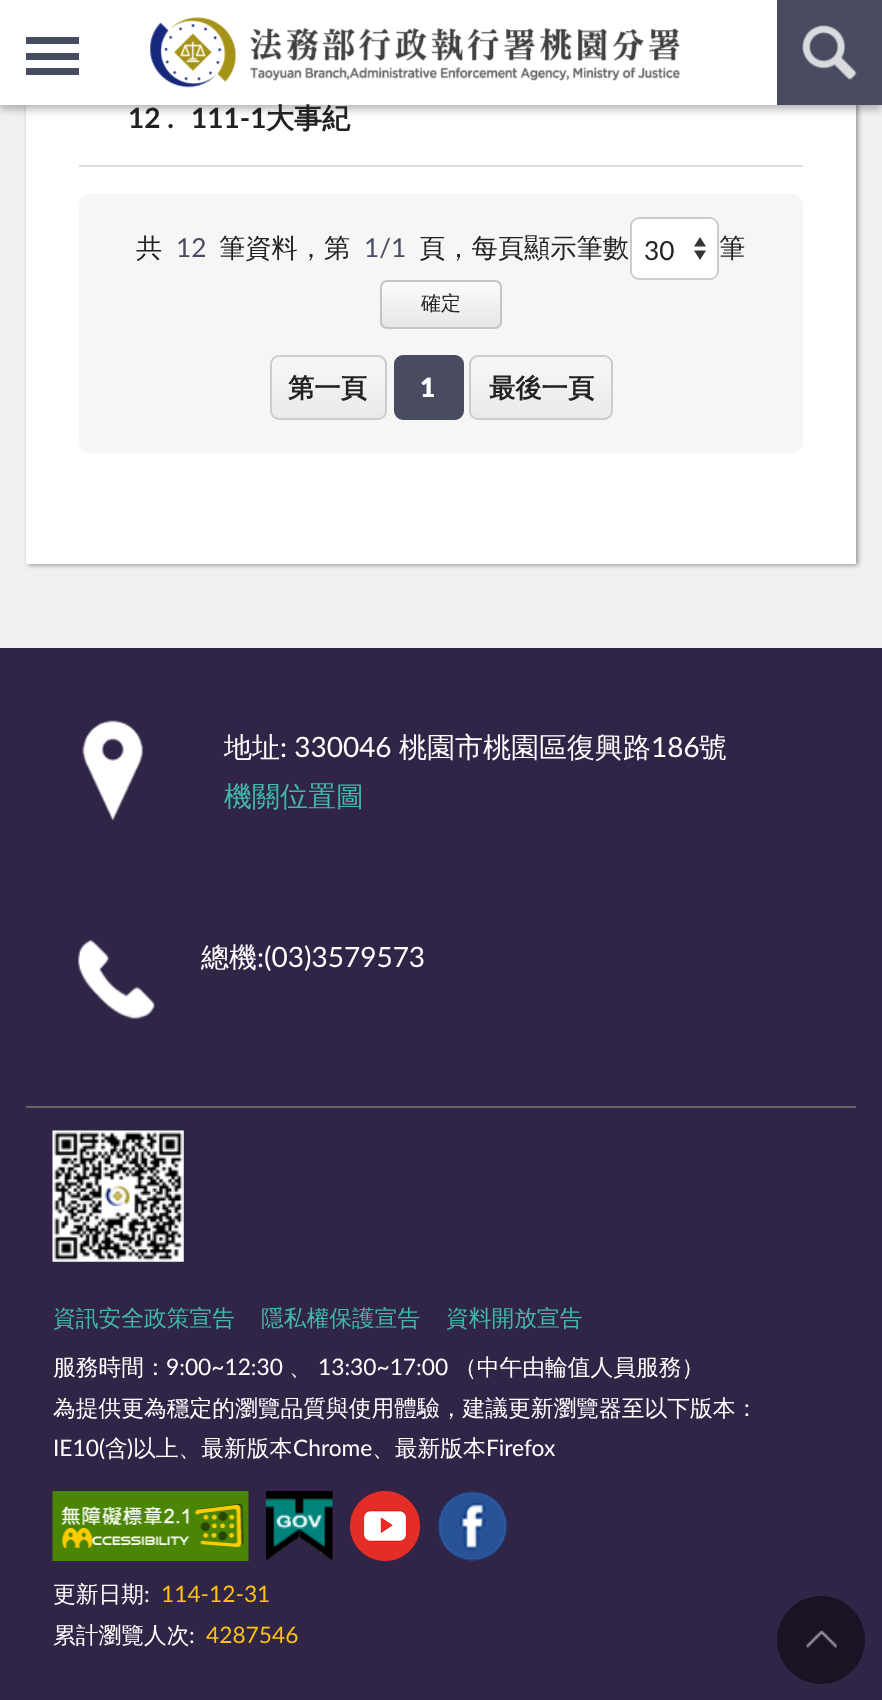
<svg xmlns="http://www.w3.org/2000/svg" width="882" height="1700">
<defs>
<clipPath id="clip1"><rect x="380" y="280" width="122" height="49" rx="7"/></clipPath>
<linearGradient id="g1" gradientUnits="userSpaceOnUse" x1="441" y1="282" x2="441" y2="327"><stop offset="0" stop-color="#fcfcfc"/><stop offset="1" stop-color="#e6e6e6"/></linearGradient>
<clipPath id="clip2"><rect x="270" y="355" width="117" height="65" rx="9"/></clipPath>
<linearGradient id="g2" gradientUnits="userSpaceOnUse" x1="328" y1="357" x2="328" y2="418"><stop offset="0" stop-color="#f7f7f7"/><stop offset="1" stop-color="#eaeaea"/></linearGradient>
<clipPath id="clip3"><rect x="469" y="355" width="144" height="65" rx="9"/></clipPath>
<linearGradient id="g3" gradientUnits="userSpaceOnUse" x1="541" y1="357" x2="541" y2="418"><stop offset="0" stop-color="#f7f7f7"/><stop offset="1" stop-color="#eaeaea"/></linearGradient>
</defs>
<rect width="100%" height="100%" fill="#302546"/>
<rect y="105" width="882" height="543" fill="#f1f1f1"/>
<rect x="28" y="-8" width="830" height="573" fill="#00000066" filter="blur(2.5px)"/>
<rect x="26" y="105" width="830" height="459" fill="#fff"/>
<rect y="4" width="882" height="105" fill="#0000004d" filter="blur(4.5px)"/>
<rect width="777" height="105" fill="#fff"/>
<rect x="26" y="37" width="53" height="7" fill="#494c61"/>
<rect x="26" y="53" width="53" height="7" fill="#494c61"/>
<rect x="26" y="68" width="53" height="7" fill="#494c61"/>
<image x="150" y="17" width="531" height="71" href="media/1.png"/>
<rect x="777" width="105" height="105" fill="#494c61"/>
<image x="802" y="25" width="55" height="55" href="media/2.png"/>
<rect x="79" y="165" width="724" height="2" fill="#ddd"/>
<text x="128" y="128" style="font-family:Lato;font-size:28px;font-weight:bold;fill:#222">12 .</text>
<text x="191" y="128" style="font-family:Lato;font-size:28px;font-weight:bold;fill:#222">111-1</text>
<text x="266" y="128" style="font-family:WenQuanYi Zen Hei;font-size:28px;font-weight:bold;fill:#222">大事紀</text>
<rect x="79" y="194" width="724" height="259" rx="11" fill="#f6f6f6"/>
<text x="136" y="257" style="font-family:WenQuanYi Zen Hei;font-size:26.25px;font-weight:500;fill:#222">共</text>
<text x="176" y="257" style="font-family:Lato;font-size:26.25px;fill:#494c61">12</text>
<text x="219" y="257" style="font-family:WenQuanYi Zen Hei;font-size:26.25px;font-weight:500;fill:#222">筆資料，第</text>
<text x="364" y="257" style="font-family:Lato;font-size:26.25px;fill:#494c61">1/1</text>
<text x="419" y="257" style="font-family:WenQuanYi Zen Hei;font-size:26.25px;font-weight:500;fill:#222">頁，每頁顯示筆數</text>
<rect x="630" y="217" width="89" height="63" rx="9" fill="#fff"/>
<path d="M700 237l-6 9.5h12zm0 23l6-9.5h-12z" fill="#353535"/>
<rect x="631" y="218" width="87" height="61" rx="8" fill="none" stroke="#ccc" stroke-width="2"/>
<text x="644" y="260" style="font-family:Lato;font-size:26.25px;fill:#222">30</text>
<text x="719" y="257" style="font-family:WenQuanYi Zen Hei;font-size:26.25px;font-weight:500;fill:#222">筆</text>
<g clip-path="url(#clip1)">
<rect x="380" y="282" width="122" height="45" fill="url(#g1)"/>
</g>
<rect x="381" y="281" width="120" height="47" rx="6" fill="none" stroke="#c4c4c4" stroke-width="2"/>
<text x="421" y="310" style="font-family:WenQuanYi Zen Hei;font-size:20px;font-weight:500;fill:#222">確定</text>
<g clip-path="url(#clip2)">
<rect x="270" y="357" width="117" height="61" fill="url(#g2)"/>
</g>
<rect x="271" y="356" width="115" height="63" rx="8" fill="none" stroke="#ccc" stroke-width="2"/>
<text x="288" y="397" style="font-family:WenQuanYi Zen Hei;font-size:26.25px;font-weight:bold;fill:#222">第一頁</text>
<rect x="395" y="356" width="68" height="63" rx="8" fill="#494c61" stroke="#494c61" stroke-width="2"/>
<text x="420" y="397" style="font-family:Lato;font-size:26.25px;font-weight:800;fill:#fff">1</text>
<g clip-path="url(#clip3)">
<rect x="469" y="357" width="144" height="61" fill="url(#g3)"/>
</g>
<rect x="470" y="356" width="142" height="63" rx="8" fill="none" stroke="#ccc" stroke-width="2"/>
<text x="489" y="397" style="font-family:WenQuanYi Zen Hei;font-size:26.25px;font-weight:bold;fill:#222">最後一頁</text>
<image x="82" y="720" width="61" height="101" href="media/3.png"/>
<text x="224" y="757" style="font-family:WenQuanYi Zen Hei;font-size:28px;font-weight:500;fill:#fff">地址</text>
<text x="280" y="757" style="font-family:Lato;font-size:28px;fill:#fff">: 330046</text>
<text x="399" y="757" style="font-family:WenQuanYi Zen Hei;font-size:28px;font-weight:500;fill:#fff">桃園市桃園區復興路</text>
<text x="651" y="757" style="font-family:Lato;font-size:28px;fill:#fff">186</text>
<text x="699" y="757" style="font-family:WenQuanYi Zen Hei;font-size:28px;font-weight:500;fill:#fff">號</text>
<text x="224" y="806" style="font-family:WenQuanYi Zen Hei;font-size:28px;font-weight:500;fill:#41b9a6">機關位置圖</text>
<image x="78" y="939" width="77" height="80" href="media/4.png"/>
<text x="201" y="967" style="font-family:WenQuanYi Zen Hei;font-size:28px;font-weight:500;fill:#fff">總機</text>
<text x="257" y="967" style="font-family:Lato;font-size:28px;fill:#fff">:(03)3579573</text>
<rect x="26" y="1106" width="830" height="2" fill="#666"/>
<image x="52" y="1130" width="132" height="132" href="media/5.png"/>
<text x="53" y="1326" style="font-family:WenQuanYi Zen Hei;font-size:22.75px;font-weight:500;fill:#41b9a6">資訊安全政策宣告</text>
<text x="261" y="1326" style="font-family:WenQuanYi Zen Hei;font-size:22.75px;font-weight:500;fill:#41b9a6">隱私權保護宣告</text>
<text x="446" y="1326" style="font-family:WenQuanYi Zen Hei;font-size:22.75px;font-weight:500;fill:#41b9a6">資料開放宣告</text>
<text x="53" y="1375" style="font-family:WenQuanYi Zen Hei;font-size:22.75px;font-weight:500;fill:#fff">服務時間：</text>
<text x="166" y="1375" style="font-family:Lato;font-size:22.75px;fill:#fff">9:00~12:30</text>
<text x="289" y="1375" style="font-family:WenQuanYi Zen Hei;font-size:22.75px;font-weight:500;fill:#fff">、</text>
<text x="318" y="1375" style="font-family:Lato;font-size:22.75px;fill:#fff">13:30~17:00</text>
<text x="454" y="1375" style="font-family:WenQuanYi Zen Hei;font-size:22.75px;font-weight:500;fill:#fff">（中午由輪值人員服務）</text>
<text x="53" y="1416" style="font-family:WenQuanYi Zen Hei;font-size:22.75px;font-weight:500;fill:#fff">為提供更為穩定的瀏覽品質與使用體驗，建議更新瀏覽器至以下版本：</text>
<text x="53" y="1456" style="font-family:Lato;font-size:22.75px;fill:#fff">IE10(</text>
<text x="105" y="1456" style="font-family:WenQuanYi Zen Hei;font-size:22.75px;font-weight:500;fill:#fff">含</text>
<text x="127" y="1456" style="font-family:Lato;font-size:22.75px;fill:#fff">)</text>
<text x="133" y="1456" style="font-family:WenQuanYi Zen Hei;font-size:22.75px;font-weight:500;fill:#fff">以上、最新版本</text>
<text x="293" y="1456" style="font-family:Lato;font-size:22.75px;fill:#fff">Chrome</text>
<text x="372" y="1456" style="font-family:WenQuanYi Zen Hei;font-size:22.75px;font-weight:500;fill:#fff">、最新版本</text>
<text x="486" y="1456" style="font-family:Lato;font-size:22.75px;fill:#fff">Firefox</text>
<image x="52" y="1491" width="197" height="70" href="media/6.png"/>
<image x="266" y="1491" width="67" height="70" href="media/7.png"/>
<image x="350" y="1491" width="70" height="70" href="media/8.png"/>
<image x="437" y="1491" width="71" height="70" href="media/9.png"/>
<text x="53" y="1602" style="font-family:WenQuanYi Zen Hei;font-size:22.75px;font-weight:500;fill:#fff">更新日期</text>
<text x="144" y="1602" style="font-family:Lato;font-size:22.75px;fill:#fff">:</text>
<text x="161" y="1602" style="font-family:Lato;font-size:22.75px;fill:#fcc211">114-12-31</text>
<text x="53" y="1643" style="font-family:WenQuanYi Zen Hei;font-size:22.75px;font-weight:500;fill:#fff">累計瀏覽人次</text>
<text x="189" y="1643" style="font-family:Lato;font-size:22.75px;fill:#fff">:</text>
<text x="206" y="1643" style="font-family:Lato;font-size:22.75px;fill:#fcc211">4287546</text>
<circle cx="821" cy="1640" r="44" fill="#191324"/>
<image x="806" y="1630" width="31" height="19" href="media/10.png"/>
</svg>
